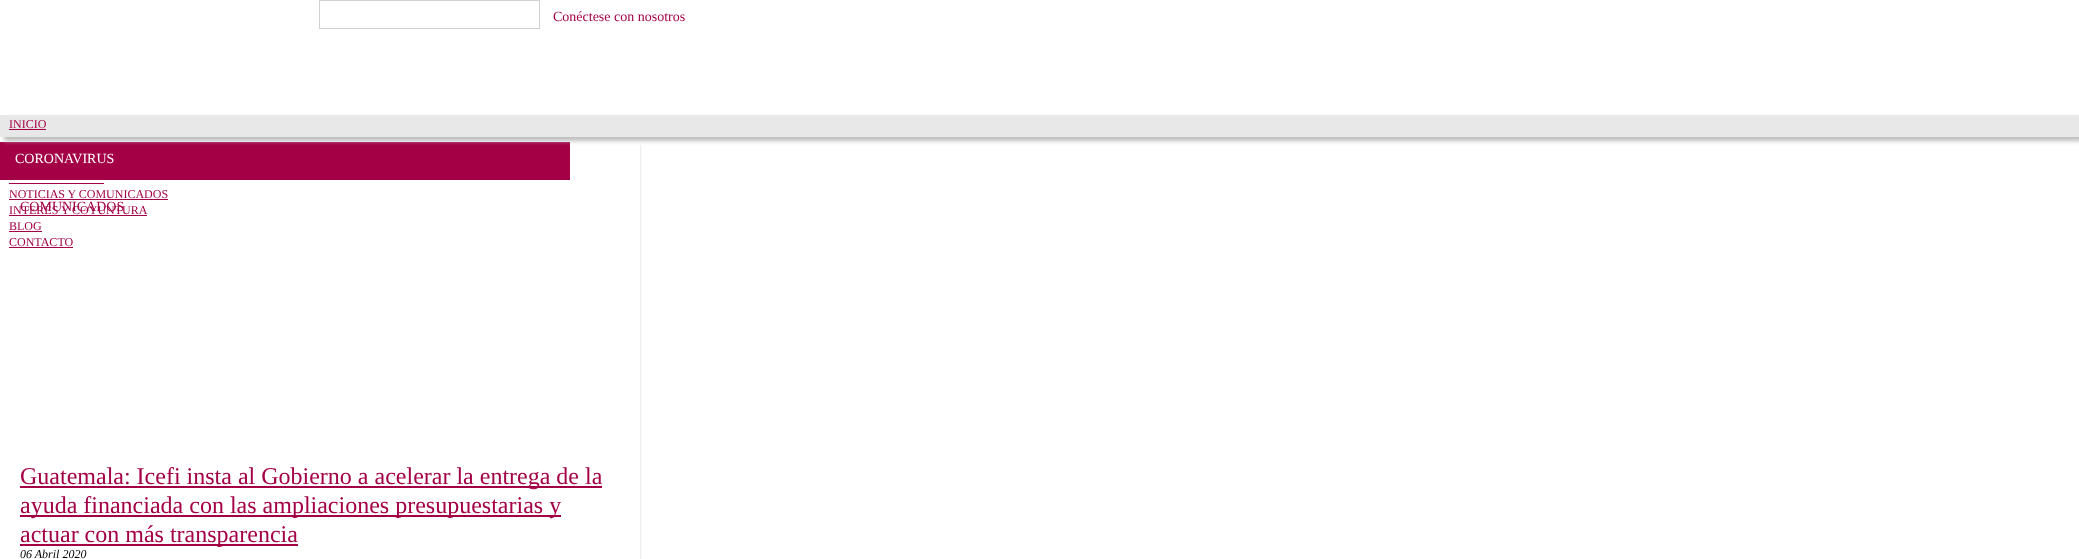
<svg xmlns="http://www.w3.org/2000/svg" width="2079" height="559">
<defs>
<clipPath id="clip1"><rect x="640" y="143" width="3" height="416"/></clipPath>
</defs>
<rect width="100%" height="100%" fill="#fff"/>
<rect x="319.5" y="0.5" width="220" height="28" fill="none" stroke="#d1d1d1"/>
<text x="553" y="21" style="font-family:Liberation Serif;font-size:14px;fill:#a30046">Conéctese con nosotros</text>
<g clip-path="url(#clip1)">
<rect y="145" width="640" height="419" fill="#d2d2d2" filter="blur(1.5px)"/>
</g>
<rect y="142" width="570" height="38" fill="#a30046"/>
<rect x="4" y="119" width="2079" height="22" fill="#bdbdbd" filter="blur(2px)"/>
<rect y="115" width="2079" height="22" fill="#e8e8e8"/>
<text x="9" y="128" style="font-family:Liberation Serif;font-size:12px;fill:#a30046">INICIO</text>
<rect x="9" y="129" width="37" height="1" fill="#a30046"/>
<rect x="9" y="183" width="95" height="1" fill="#a30046"/>
<text x="9" y="198" style="font-family:Liberation Serif;font-size:12px;fill:#a30046">NOTICIAS Y COMUNICADOS</text>
<rect x="9" y="199" width="159" height="1" fill="#a30046"/>
<text x="20" y="211" style="font-family:Liberation Serif;font-size:14px;fill:#a30046">COMUNICADOS</text>
<text x="9" y="214" style="font-family:Liberation Serif;font-size:12px;fill:#a30046">INTERÉS Y COYUNTURA</text>
<rect x="9" y="215" width="138" height="1" fill="#a30046"/>
<text x="9" y="230" style="font-family:Liberation Serif;font-size:12px;fill:#a30046">BLOG</text>
<rect x="9" y="231" width="33" height="1" fill="#a30046"/>
<text x="9" y="246" style="font-family:Liberation Serif;font-size:12px;fill:#a30046">CONTACTO</text>
<rect x="9" y="247" width="64" height="1" fill="#a30046"/>
<text x="15" y="163" style="font-family:Liberation Serif;font-size:14px;fill:#fff">CORONAVIRUS</text>
<rect x="20" y="486" width="582" height="2" fill="#a30046"/>
<text x="20" y="484" style="font-family:Liberation Serif;font-size:24px;fill:#a30046">Guatemala: Icefi insta al Gobierno a acelerar la entrega de la</text>
<rect x="20" y="515" width="541" height="2" fill="#a30046"/>
<text x="20" y="513" style="font-family:Liberation Serif;font-size:24px;fill:#a30046">ayuda financiada con las ampliaciones presupuestarias y</text>
<rect x="20" y="544" width="278" height="2" fill="#a30046"/>
<text x="20" y="542" style="font-family:Liberation Serif;font-size:24px;fill:#a30046">actuar con más transparencia</text>
<text x="20" y="558" style="font-family:Liberation Serif;font-size:12px;font-style:italic;fill:#000">06 Abril 2020</text>
</svg>
